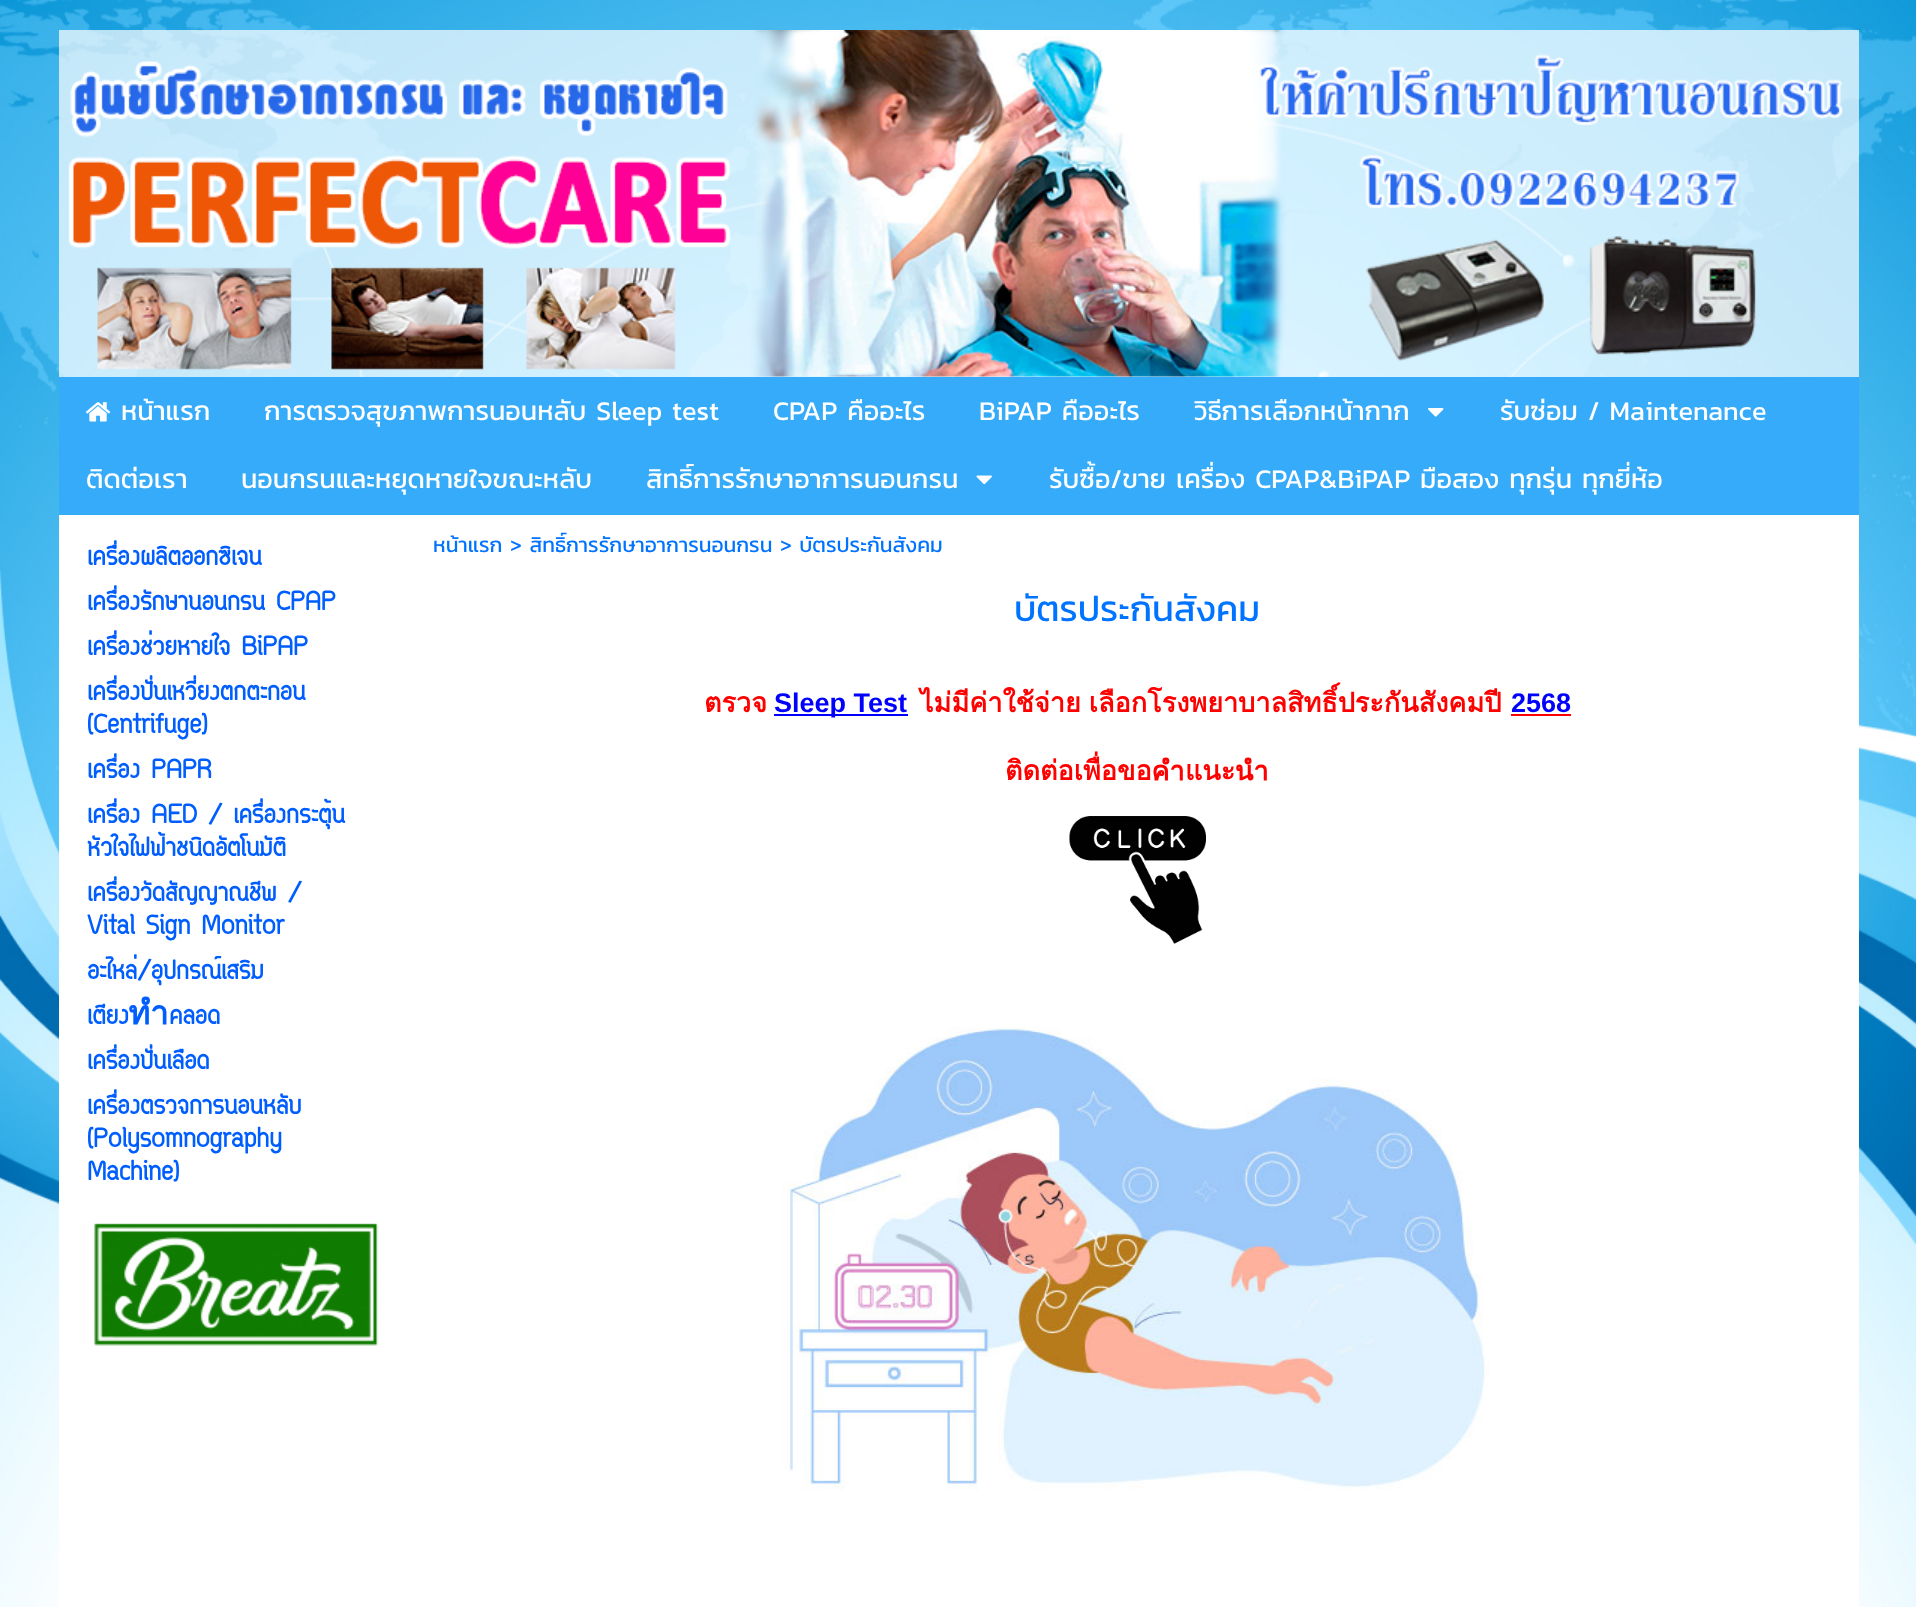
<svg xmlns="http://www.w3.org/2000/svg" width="1916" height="1607">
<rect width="100%" height="100%" fill="#fff"/>
<image x="0" y="0" width="1916" height="1607" href="media/1.png"/>
<rect x="59" y="30" width="1800" height="347" fill="#ffffffb3"/>
<image x="68" y="30" width="1775" height="347" href="media/2.png"/>
<rect x="59" y="377" width="1800" height="138" fill="#35abfa"/>
<image x="86" y="402" width="25" height="20" href="media/3.png"/>
<text x="121" y="420" style="font-family:Kanit;font-size:27px;fill:#fff">หน้าแรก</text>
<text x="264" y="420" style="font-family:Kanit;font-size:27px;fill:#fff">การตรวจสุขภาพการนอนหลับ Sleep test</text>
<text x="773" y="420" style="font-family:Kanit;font-size:27px;fill:#fff">CPAP คืออะไร</text>
<text x="979" y="420" style="font-family:Kanit;font-size:27px;fill:#fff">BiPAP คืออะไร</text>
<text x="1194" y="420" style="font-family:Kanit;font-size:27px;fill:#fff">วิธีการเลือกหน้ากาก</text>
<image x="1428" y="408" width="16" height="9" href="media/4.png"/>
<text x="1500" y="420" style="font-family:Kanit;font-size:27px;fill:#fff">รับซ่อม / Maintenance</text>
<text x="86" y="488" style="font-family:Kanit;font-size:27px;fill:#fff">ติดต่อเรา</text>
<text x="241" y="488" style="font-family:Kanit;font-size:27px;fill:#fff">นอนกรนและหยุดหายใจขณะหลับ</text>
<text x="646" y="488" style="font-family:Kanit;font-size:27px;fill:#fff">สิทธิ์การรักษาอาการนอนกรน</text>
<image x="976" y="475" width="16" height="10" href="media/5.png"/>
<text x="1049" y="488" style="font-family:Kanit;font-size:27px;fill:#fff">รับซื้อ/ขาย เครื่อง CPAP&amp;BiPAP มือสอง ทุกรุ่น ทุกยี่ห้อ</text>
<rect x="59" y="515" width="1800" height="1092" fill="#fff"/>
<text x="87" y="565" style="font-family:Circular;font-size:33px;font-weight:bold;fill:#005eff">เครื่องผลิตออกซิเจน</text>
<text x="87" y="610" style="font-family:Circular;font-size:33px;font-weight:bold;fill:#005eff">เครื่องรักษานอนกรน CPAP</text>
<text x="87" y="655" style="font-family:Circular;font-size:33px;font-weight:bold;fill:#005eff">เครื่องช่วยหายใจ BiPAP</text>
<text x="87" y="700" style="font-family:Circular;font-size:33px;font-weight:bold;fill:#005eff">เครื่องปั่นเหวี่ยงตกตะกอน</text>
<text x="87" y="733" style="font-family:Circular;font-size:33px;font-weight:bold;fill:#005eff">(Centrifuge)</text>
<text x="87" y="778" style="font-family:Circular;font-size:33px;font-weight:bold;fill:#005eff">เครื่อง PAPR</text>
<text x="87" y="823" style="font-family:Circular;font-size:33px;font-weight:bold;fill:#005eff">เครื่อง AED / เครื่องกระตุ้น</text>
<text x="87" y="856" style="font-family:Circular;font-size:33px;font-weight:bold;fill:#005eff">หัวใจไฟฟ้าชนิดอัตโนมัติ</text>
<text x="87" y="901" style="font-family:Circular;font-size:33px;font-weight:bold;fill:#005eff">เครื่องวัดสัญญาณชีพ /</text>
<text x="87" y="934" style="font-family:Circular;font-size:33px;font-weight:bold;fill:#005eff">Vital Sign Monitor</text>
<text x="87" y="979" style="font-family:Circular;font-size:33px;font-weight:bold;fill:#005eff">อะไหล่/อุปกรณ์เสริม</text>
<text x="87" y="1024" style="font-family:Circular;font-size:33px;font-weight:bold;fill:#005eff">เตียงทำคลอด</text>
<text x="87" y="1069" style="font-family:Circular;font-size:33px;font-weight:bold;fill:#005eff">เครื่องปั่นเลือด</text>
<text x="87" y="1114" style="font-family:Circular;font-size:33px;font-weight:bold;fill:#005eff">เครื่องตรวจการนอนหลับ</text>
<text x="87" y="1147" style="font-family:Circular;font-size:33px;font-weight:bold;fill:#005eff">(Polysomnography</text>
<text x="87" y="1180" style="font-family:Circular;font-size:33px;font-weight:bold;fill:#005eff">Machine)</text>
<image x="94" y="1223" width="285" height="123" href="media/6.png"/>
<text x="433" y="552" style="font-family:Kanit;font-size:21px;fill:#0073ff">หน้าแรก &gt; สิทธิ์การรักษาอาการนอนกรน &gt; บัตรประกันสังคม</text>
<text x="1014" y="621" style="font-family:Kanit;font-size:36px;fill:#0073ff">บัตรประกันสังคม</text>
<text x="704" y="712" style="font-family:Loma;font-size:27px;font-weight:bold;fill:#f00">ตรวจ</text>
<rect x="774" y="714" width="134" height="2" fill="#00f"/>
<text x="774" y="712" style="font-family:Liberation Sans;font-size:27px;font-weight:bold;fill:#00f">Sleep Test</text>
<text x="920" y="712" word-spacing="-1" style="font-family:Loma;font-size:27px;font-weight:bold;fill:#f00">ไม่มีค่าใช้จ่าย เลือกโรงพยาบาลสิทธิ์ประกันสังคมปี</text>
<text x="1511" y="712" style="font-family:Liberation Sans;font-size:27px;font-weight:bold;fill:#00f">2568</text>
<rect x="1511" y="714" width="60" height="2" fill="#f00"/>
<text x="1005" y="780" style="font-family:Loma;font-size:27px;font-weight:bold;fill:#f00">ติดต่อเพื่อขอคำแนะนำ</text>
<image x="1069" y="816" width="137" height="128" href="media/7.png"/>
<image x="782" y="1027" width="708" height="463" href="media/8.png"/>
</svg>
